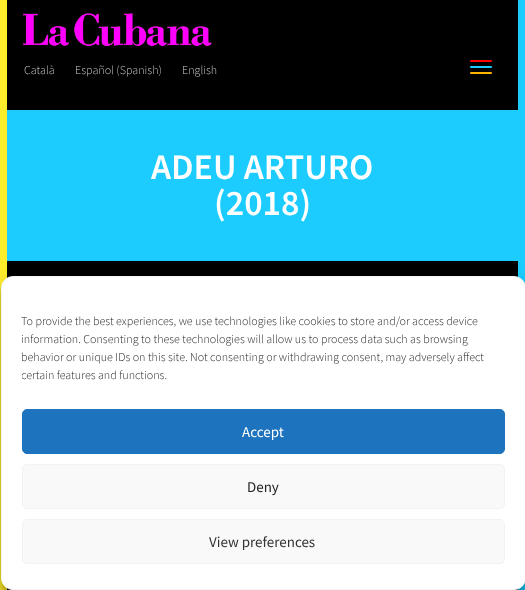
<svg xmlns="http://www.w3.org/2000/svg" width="525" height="590">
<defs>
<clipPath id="clip1"><path d="M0 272h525v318h-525zm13 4h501c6.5 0 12 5.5 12 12v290c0 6.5-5.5 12-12 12h-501c-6.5 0-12-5.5-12-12v-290c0-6.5 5.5-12 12-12z" clip-rule="evenodd"/></clipPath>
<clipPath id="clip2"><path d="M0 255h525v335h-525zm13 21h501c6.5 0 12 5.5 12 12v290c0 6.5-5.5 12-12 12h-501c-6.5 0-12-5.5-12-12v-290c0-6.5 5.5-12 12-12z" clip-rule="evenodd"/></clipPath>
<clipPath id="clip3"><rect x="22" y="312" width="483" height="77"/></clipPath>
</defs>
<rect width="100%" height="100%" fill="#000"/>
<rect x="518" width="7" height="590" fill="#1dccff"/>
<rect width="7" height="590" fill="#feed2b"/>
<image x="22" y="13" width="190" height="34" href="media/1.png"/>
<text x="24" y="74" style="font-family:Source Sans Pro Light;font-size:12px;font-weight:300;fill:#ccc">Català</text>
<text x="75" y="74" style="font-family:Source Sans Pro Light;font-size:12px;font-weight:300;fill:#ccc">Español (Spanish)</text>
<text x="182" y="74" style="font-family:Source Sans Pro Light;font-size:12px;font-weight:300;fill:#ccc">English</text>
<rect x="470" y="60" width="22" height="2" rx="1" fill="#f00"/>
<rect x="470" y="66" width="22" height="2" rx="1" fill="#1dccff"/>
<rect x="470" y="72" width="22" height="2" rx="1" fill="#ffb600"/>
<rect x="7" y="110" width="511" height="151" fill="#1dccff"/>
<text x="151" y="179" style="font-family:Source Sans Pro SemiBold;font-size:36px;font-weight:600;fill:#fff">ADEU ARTURO</text>
<text x="214" y="215" style="font-family:Source Sans Pro SemiBold;font-size:36px;font-weight:600;fill:#fff">(2018)</text>
<g clip-path="url(#clip1)">
<rect x="1" y="282" width="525" height="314" rx="12" fill="#0000003b" filter="blur(3px)"/>
</g>
<g clip-path="url(#clip2)">
<rect x="1" y="286" width="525" height="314" rx="12" fill="#00000030" filter="blur(10px)"/>
</g>
<rect x="1.5" y="276.5" width="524" height="313" rx="11.5" fill="#fff" stroke="#f2f2f2"/>
<text x="21" y="325" style="font-family:Source Sans Pro Light;font-size:12px;font-weight:300;fill:#222">To provide the best experiences, we use technologies like cookies to store and/or access device</text>
<text x="21" y="343" style="font-family:Source Sans Pro Light;font-size:12px;font-weight:300;fill:#222">information. Consenting to these technologies will allow us to process data such as browsing</text>
<text x="21" y="361" style="font-family:Source Sans Pro Light;font-size:12px;font-weight:300;fill:#222">behavior or unique IDs on this site. Not consenting or withdrawing consent, may adversely affect</text>
<g clip-path="url(#clip3)">
<text x="21" y="379" style="font-family:Source Sans Pro Light;font-size:12px;font-weight:300;fill:#222">certain features and functions.</text>
</g>
<rect x="22.5" y="409.5" width="482" height="44" rx="4.5" fill="#1e73be" stroke="#1e73be"/>
<text x="242" y="437" style="font-family:Source Sans Pro;font-size:15px;fill:#fff">Accept</text>
<rect x="22.5" y="464.5" width="482" height="44" rx="4.5" fill="#f9f9f9" stroke="#f2f2f2"/>
<text x="247" y="492" style="font-family:Source Sans Pro;font-size:15px;fill:#222">Deny</text>
<rect x="22.5" y="519.5" width="482" height="44" rx="4.5" fill="#f9f9f9" stroke="#f2f2f2"/>
<text x="209" y="547" style="font-family:Source Sans Pro;font-size:15px;fill:#333">View preferences</text>
</svg>
